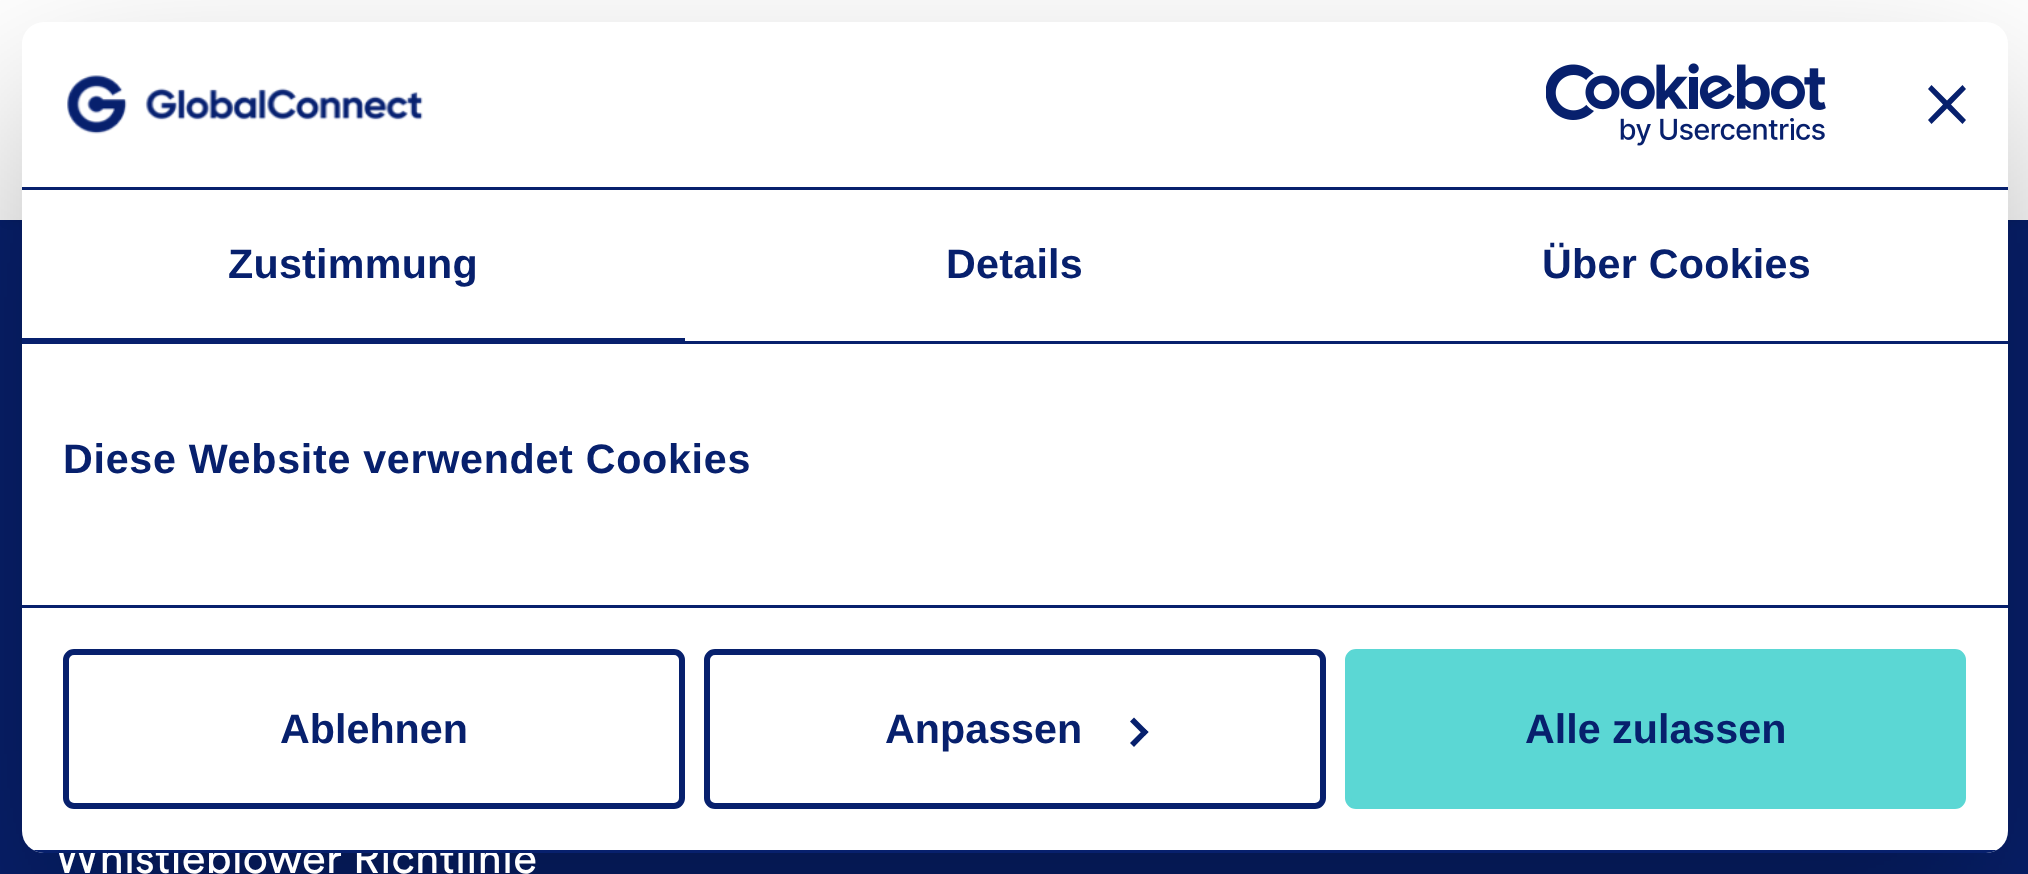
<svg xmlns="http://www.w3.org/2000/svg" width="2028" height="874">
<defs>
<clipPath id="clip1"><rect x="22" y="22" width="1986" height="831" rx="22"/></clipPath>
</defs>
<rect width="100%" height="100%" fill="#07206d"/>
<rect x="6" y="11" width="2018" height="209" fill="#0000001a" filter="blur(5.5px)"/>
<rect width="2028" height="220" fill="#fff"/>
<rect x="22" y="110" width="1986" height="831" rx="22" fill="#0000004d" filter="blur(93.5px)"/>
<rect x="22" y="22" width="1986" height="831" rx="22" fill="#fff"/>
<rect x="22" y="187" width="1986" height="3" fill="#07206d"/>
<image x="67" y="75" width="356" height="59" href="media/1.png"/>
<image x="1546" y="63" width="280" height="83" href="media/2.png"/>
<path d="M1966 89l-3.5-4l-15.5 15.5l-15.5-15.5l-3.5 4l15 15.5l-15 15.5l3.5 4l15.5-15.5l15.5 15.5l3.5-4l-15-15.5z" fill="#07206d"/>
<rect x="22" y="341" width="1986" height="3" fill="#07206d"/>
<rect x="22" y="338" width="663" height="3" fill="#07206d"/>
<text x="228" y="278" style="font-family:Liberation Sans;font-size:41.25px;font-weight:bold;letter-spacing:0.25px;fill:#07206d">Zustimmung</text>
<text x="946" y="278" style="font-family:Liberation Sans;font-size:41.25px;font-weight:bold;letter-spacing:0.25px;fill:#07206d">Details</text>
<text x="1542" y="278" style="font-family:Liberation Sans;font-size:41.25px;font-weight:bold;letter-spacing:0.25px;fill:#07206d">Über Cookies</text>
<rect x="22" y="605" width="1986" height="3" fill="#07206d"/>
<text x="63" y="473" style="font-family:Liberation Sans;font-size:41.25px;font-weight:bold;letter-spacing:0.7px;fill:#07206d">Diese Website verwendet Cookies</text>
<text x="55" y="873" style="font-family:Circular;font-size:44px;fill:#fff">Whistleblower Richtlinie</text>
<g clip-path="url(#clip1)">
<rect x="33" y="850" width="1964" height="3" fill="#07206d"/>
</g>
<rect x="66" y="652" width="616" height="154" rx="8" fill="none" stroke="#07206d" stroke-width="6"/>
<text x="280" y="743" style="font-family:Liberation Sans;font-size:41.25px;font-weight:bold;fill:#07206d">Ablehnen</text>
<rect x="707" y="652" width="616" height="154" rx="8" fill="none" stroke="#07206d" stroke-width="6"/>
<text x="885" y="743" style="font-family:Liberation Sans;font-size:41.25px;font-weight:bold;fill:#07206d">Anpassen</text>
<path d="M1134 717.5l14.5 14.5l-4 4l-14.5-14.5z" fill="#07206d"/>
<path d="M1144.5 728.5l4 3.5l-14.5 15l-4-4z" fill="#07206d"/>
<rect x="1348" y="652" width="615" height="154" rx="8" fill="#5bd7d4" stroke="#5bd7d4" stroke-width="6"/>
<text x="1525" y="743" style="font-family:Liberation Sans;font-size:41.25px;font-weight:bold;fill:#07206d">Alle zulassen</text>
</svg>
